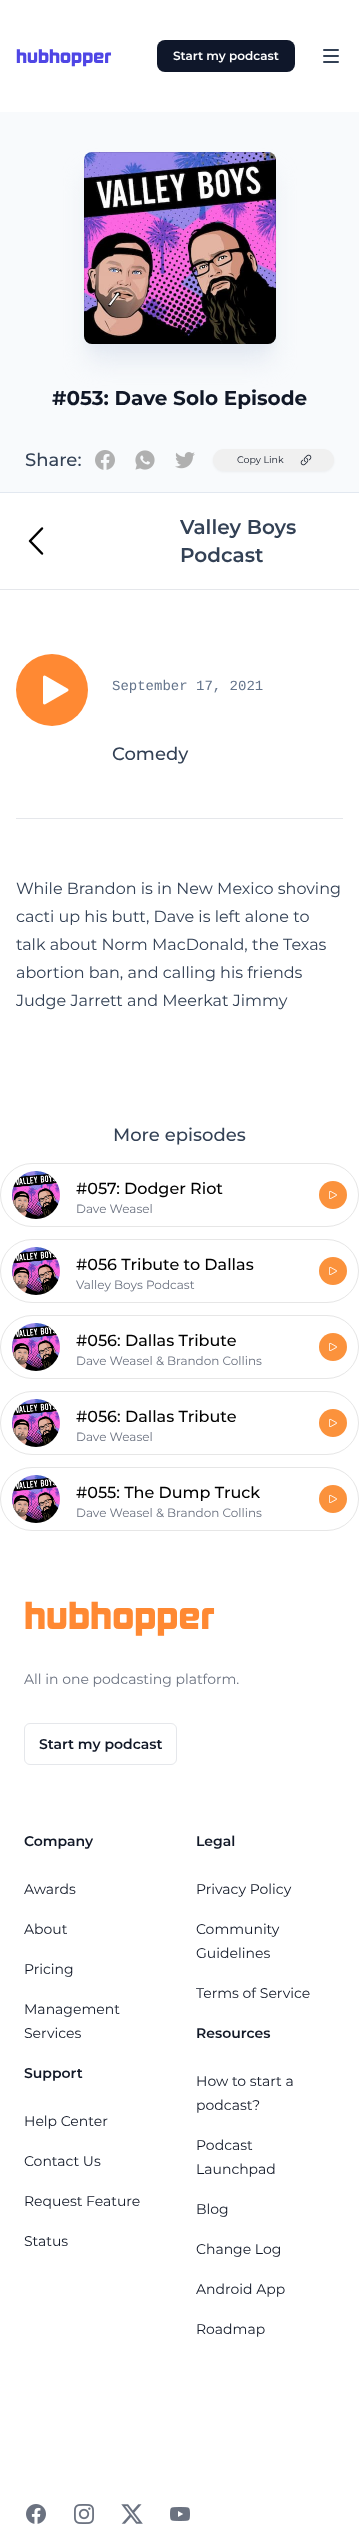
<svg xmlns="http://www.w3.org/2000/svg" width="359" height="2530">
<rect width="100%" height="100%" fill="#fff"/>
<text x="16" y="63" style="font-family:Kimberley;font-size:18px;font-weight:900;fill:#4f46e5">hubhopper</text>
<rect x="157" y="40" width="138" height="32" rx="8" fill="#0f172a"/>
<text x="173" y="60" style="font-family:Montserrat;font-size:12px;font-weight:600;fill:#fff">Start my podcast</text>
<path d="M324 50h14m-14 6h14m-14 6h14" fill="none" stroke="#334155" stroke-width="2" stroke-linecap="round"/>
<rect y="112" width="359" height="380" fill="#f8fafc"/>
<rect x="90" y="166" width="180" height="180" rx="2" fill="#e2e8f0" filter="blur(5px)"/>
<rect x="89" y="177" width="182" height="182" rx="3" fill="#e2e8f0" filter="blur(12.5px)"/>
<rect x="84" y="152" width="192" height="192" rx="8" fill="#e2e8f0"/>
<image x="84" y="152" width="192" height="192" href="media/1.png"/>
<rect x="84.5" y="152.5" width="191" height="191" rx="7.5" fill="none" stroke="#0000001a"/>
<text x="52" y="405" style="font-family:Montserrat;font-size:20px;font-weight:bold;fill:#111827">#053: Dave Solo Episode</text>
<text x="25" y="466" style="font-family:Montserrat;font-size:18px;font-weight:500;fill:#334155">Share:</text>
<image x="95" y="450" width="20" height="20" href="media/2.png"/>
<image x="135" y="450" width="20" height="20" href="media/3.png"/>
<image x="175" y="452" width="20" height="17" href="media/4.png"/>
<rect x="213" y="450" width="121" height="22" rx="11" fill="#0000000d" filter="blur(1px)"/>
<rect x="213" y="449" width="121" height="22" rx="11" fill="#f0f0f0"/>
<text x="237" y="463" style="font-family:Montserrat;font-size:9.5px;fill:#111827">Copy Link</text>
<image x="300" y="454" width="12" height="12" href="media/5.png"/>
<rect y="492" width="359" height="1" fill="#e2e8f0"/>
<rect y="589" width="359" height="1" fill="#e5e7eb"/>
<path d="M42 553.5l-12-12.5l12-12.5" fill="none" stroke="#000" stroke-width="2.5" stroke-linecap="round" stroke-linejoin="round"/>
<text x="180" y="534" style="font-family:Montserrat;font-size:20px;font-weight:600;fill:#334155">Valley Boys</text>
<text x="180" y="562" style="font-family:Montserrat;font-size:20px;font-weight:600;fill:#334155">Podcast</text>
<circle cx="52" cy="690" r="36" fill="#ff8933"/>
<image x="43" y="675" width="26" height="30" href="media/6.png"/>
<text x="112" y="690" style="font-family:Liberation Mono;font-size:14px;fill:#64748b">September 17, 2021</text>
<text x="112" y="760" style="font-family:Montserrat;font-size:18px;font-weight:500;fill:#334155">Comedy</text>
<rect x="16" y="818" width="327" height="1" fill="#e5e7eb"/>
<text x="16" y="894" style="font-family:Montserrat;font-size:16px;fill:#334155">While Brandon is in New Mexico shoving</text>
<text x="16" y="922" style="font-family:Montserrat;font-size:16px;fill:#334155">cacti up his butt, Dave is left alone to</text>
<text x="16" y="950" style="font-family:Montserrat;font-size:16px;fill:#334155">talk about Norm MacDonald, the Texas</text>
<text x="16" y="978" style="font-family:Montserrat;font-size:16px;fill:#334155">abortion ban, and calling his friends</text>
<text x="16" y="1006" style="font-family:Montserrat;font-size:16px;fill:#334155">Judge Jarrett and Meerkat Jimmy</text>
<text x="113" y="1141" style="font-family:Montserrat;font-size:18px;font-weight:500;fill:#334155">More episodes</text>
<rect x="0.5" y="1163.5" width="358" height="63" rx="31.5" fill="none" stroke="#e6e6e6"/>
<image x="12" y="1171" width="48" height="48" href="media/7.png"/>
<text x="76" y="1194" style="font-family:Montserrat;font-size:16px;font-weight:500;fill:#000">#057: Dodger Riot</text>
<text x="76" y="1213" style="font-family:Montserrat;font-size:12px;fill:#6b7280">Dave Weasel</text>
<circle cx="333" cy="1195" r="14" fill="#fb923c"/>
<image x="329" y="1190" width="8" height="9" href="media/8.png"/>
<rect x="0.5" y="1239.5" width="358" height="63" rx="31.5" fill="none" stroke="#e6e6e6"/>
<image x="12" y="1247" width="48" height="48" href="media/9.png"/>
<text x="76" y="1270" style="font-family:Montserrat;font-size:16px;font-weight:500;fill:#000">#056 Tribute to Dallas</text>
<text x="76" y="1289" style="font-family:Montserrat;font-size:12px;fill:#6b7280">Valley Boys Podcast</text>
<circle cx="333" cy="1271" r="14" fill="#fb923c"/>
<image x="329" y="1266" width="8" height="9" href="media/8.png"/>
<rect x="0.5" y="1315.5" width="358" height="63" rx="31.5" fill="none" stroke="#e6e6e6"/>
<image x="12" y="1323" width="48" height="48" href="media/7.png"/>
<text x="76" y="1346" style="font-family:Montserrat;font-size:16px;font-weight:500;fill:#000">#056: Dallas Tribute</text>
<text x="76" y="1365" style="font-family:Montserrat;font-size:12px;fill:#6b7280">Dave Weasel &amp; Brandon Collins</text>
<circle cx="333" cy="1347" r="14" fill="#fb923c"/>
<image x="329" y="1342" width="8" height="9" href="media/8.png"/>
<rect x="0.5" y="1391.5" width="358" height="63" rx="31.5" fill="none" stroke="#e6e6e6"/>
<image x="12" y="1399" width="48" height="48" href="media/7.png"/>
<text x="76" y="1422" style="font-family:Montserrat;font-size:16px;font-weight:500;fill:#000">#056: Dallas Tribute</text>
<text x="76" y="1441" style="font-family:Montserrat;font-size:12px;fill:#6b7280">Dave Weasel</text>
<circle cx="333" cy="1423" r="14" fill="#fb923c"/>
<image x="329" y="1418" width="8" height="9" href="media/8.png"/>
<rect x="0.5" y="1467.5" width="358" height="63" rx="31.5" fill="none" stroke="#e6e6e6"/>
<image x="12" y="1475" width="48" height="48" href="media/7.png"/>
<text x="76" y="1498" style="font-family:Montserrat;font-size:16px;font-weight:500;fill:#000">#055: The Dump Truck</text>
<text x="76" y="1517" style="font-family:Montserrat;font-size:12px;fill:#6b7280">Dave Weasel &amp; Brandon Collins</text>
<circle cx="333" cy="1499" r="14" fill="#fb923c"/>
<image x="329" y="1494" width="8" height="9" href="media/8.png"/>
<text x="24" y="1629" style="font-family:Kimberley;font-size:36px;font-weight:900;fill:#ff8933">hubhopper</text>
<text x="24" y="1684" style="font-family:Montserrat;font-size:14px;fill:#6b7280">All in one podcasting platform.</text>
<rect x="24.5" y="1723.5" width="152" height="41" rx="5.5" fill="none" stroke="#e5e7eb"/>
<text x="39" y="1749" style="font-family:Montserrat;font-size:14px;font-weight:600;fill:#111827">Start my podcast</text>
<text x="24" y="1846" style="font-family:Montserrat;font-size:14px;font-weight:600;fill:#111827">Company</text>
<text x="24" y="1894" style="font-family:Montserrat;font-size:14px;fill:#111827">Awards</text>
<text x="24" y="1934" style="font-family:Montserrat;font-size:14px;fill:#111827">About</text>
<text x="24" y="1974" style="font-family:Montserrat;font-size:14px;fill:#111827">Pricing</text>
<text x="24" y="2014" style="font-family:Montserrat;font-size:14px;fill:#111827">Management</text>
<text x="24" y="2038" style="font-family:Montserrat;font-size:14px;fill:#111827">Services</text>
<text x="24" y="2078" style="font-family:Montserrat;font-size:14px;font-weight:600;fill:#111827">Support</text>
<text x="24" y="2126" style="font-family:Montserrat;font-size:14px;fill:#111827">Help Center</text>
<text x="24" y="2166" style="font-family:Montserrat;font-size:14px;fill:#111827">Contact Us</text>
<text x="24" y="2206" style="font-family:Montserrat;font-size:14px;fill:#111827">Request Feature</text>
<text x="24" y="2246" style="font-family:Montserrat;font-size:14px;fill:#111827">Status</text>
<text x="196" y="1846" style="font-family:Montserrat;font-size:14px;font-weight:600;fill:#111827">Legal</text>
<text x="196" y="1894" style="font-family:Montserrat;font-size:14px;fill:#111827">Privacy Policy</text>
<text x="196" y="1934" style="font-family:Montserrat;font-size:14px;fill:#111827">Community</text>
<text x="196" y="1958" style="font-family:Montserrat;font-size:14px;fill:#111827">Guidelines</text>
<text x="196" y="1998" style="font-family:Montserrat;font-size:14px;fill:#111827">Terms of Service</text>
<text x="196" y="2038" style="font-family:Montserrat;font-size:14px;font-weight:600;fill:#111827">Resources</text>
<text x="196" y="2086" style="font-family:Montserrat;font-size:14px;fill:#111827">How to start a</text>
<text x="196" y="2110" style="font-family:Montserrat;font-size:14px;fill:#111827">podcast?</text>
<text x="196" y="2150" style="font-family:Montserrat;font-size:14px;fill:#111827">Podcast</text>
<text x="196" y="2174" style="font-family:Montserrat;font-size:14px;fill:#111827">Launchpad</text>
<text x="196" y="2214" style="font-family:Montserrat;font-size:14px;fill:#111827">Blog</text>
<text x="196" y="2254" style="font-family:Montserrat;font-size:14px;fill:#111827">Change Log</text>
<text x="196" y="2294" style="font-family:Montserrat;font-size:14px;fill:#111827">Android App</text>
<text x="196" y="2334" style="font-family:Montserrat;font-size:14px;fill:#111827">Roadmap</text>
<image x="26" y="2504" width="20" height="20" href="media/10.png"/>
<image x="74" y="2504" width="20" height="20" href="media/11.png"/>
<image x="121" y="2504" width="22" height="20" href="media/12.png"/>
<image x="170" y="2507" width="20" height="14" href="media/13.png"/>
</svg>
